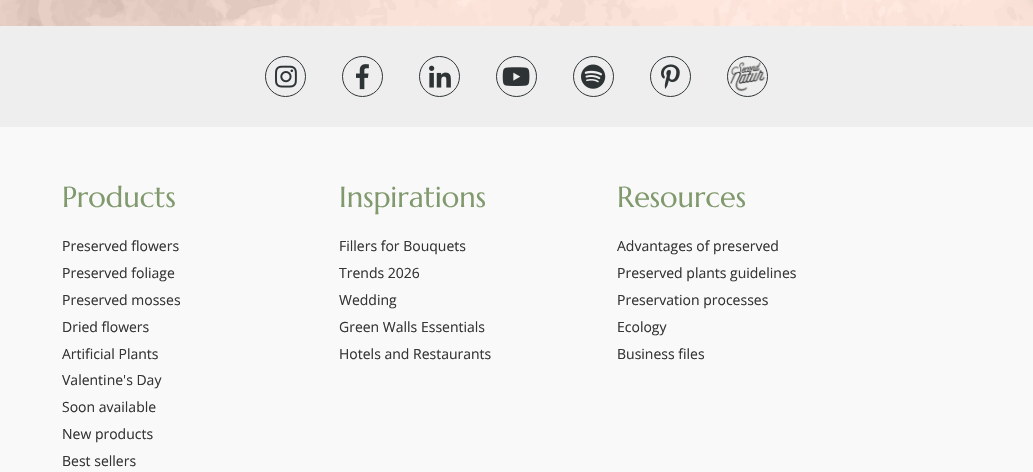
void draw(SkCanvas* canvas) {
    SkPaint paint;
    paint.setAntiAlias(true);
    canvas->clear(0xFFF9F9F9);
    canvas->drawImageRect(SkImages::DeferredFromEncodedData(SkData::MakeFromFileName("img1.png")), SkRect::MakeXYWH(0, 0, 1033, 26), SkSamplingOptions());
    paint.setColor(0x2E000000);
    paint.setMaskFilter(SkMaskFilter::MakeBlur(kNormal_SkBlurStyle, 6));
    canvas->drawRect(SkRect::MakeXYWH(1033, -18, 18, 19), paint);
    paint.setMaskFilter(nullptr);
    paint.setColor(0xFFEEEEEE);
    canvas->drawRect(SkRect::MakeXYWH(0, 26, 1033, 101), paint);
    paint.setStyle(SkPaint::kStroke_Style);
    paint.setStrokeWidth(1);
    paint.setColor(0xFF2E3436);
    canvas->drawCircle(285.5f, 76.5f, 20, paint);
    canvas->drawImageRect(SkImages::DeferredFromEncodedData(SkData::MakeFromFileName("img2.png")), SkRect::MakeXYWH(275, 65, 22, 23), SkSamplingOptions());
    canvas->drawCircle(362.5f, 76.5f, 20, paint);
    canvas->drawImageRect(SkImages::DeferredFromEncodedData(SkData::MakeFromFileName("img3.png")), SkRect::MakeXYWH(356, 64, 13, 26), SkSamplingOptions());
    canvas->drawCircle(439.5f, 76.5f, 20, paint);
    canvas->drawImageRect(SkImages::DeferredFromEncodedData(SkData::MakeFromFileName("img4.png")), SkRect::MakeXYWH(429, 65, 22, 23), SkSamplingOptions());
    canvas->drawCircle(516.5f, 76.5f, 20, paint);
    canvas->drawImageRect(SkImages::DeferredFromEncodedData(SkData::MakeFromFileName("img5.png")), SkRect::MakeXYWH(502, 67, 28, 19), SkSamplingOptions());
    canvas->drawCircle(593.5f, 76.5f, 20, paint);
    canvas->drawImageRect(SkImages::DeferredFromEncodedData(SkData::MakeFromFileName("img6.png")), SkRect::MakeXYWH(581, 64, 25, 25), SkSamplingOptions());
    canvas->drawCircle(670.5f, 76.5f, 20, paint);
    canvas->drawImageRect(SkImages::DeferredFromEncodedData(SkData::MakeFromFileName("img7.png")), SkRect::MakeXYWH(661, 64, 19, 25), SkSamplingOptions());
    canvas->drawCircle(747.5f, 76.5f, 20, paint);
    canvas->drawImageRect(SkImages::DeferredFromEncodedData(SkData::MakeFromFileName("img8.png")), SkRect::MakeXYWH(730, 62, 36, 30), SkSamplingOptions());
    SkFont font1(fontMgr->matchFamilyStyle("Marcellus", SkFontStyle::Normal()), 29);
    font1.setSubpixel(true);
    paint.setStyle(SkPaint::kFill_Style);
    paint.setColor(0xFF80996D);
    canvas->drawString("Products", 62, 207, font1, paint);
    SkFont font2(fontMgr->matchFamilyStyle("Open Sans", SkFontStyle::Normal()), 14);
    font2.setSubpixel(true);
    paint.setColor(0xFF353535);
    canvas->drawString("Preserved flowers", 62, 251, font2, paint);
    canvas->drawString("Preserved foliage", 62, 278, font2, paint);
    canvas->drawString("Preserved mosses", 62, 305, font2, paint);
    canvas->drawString("Dried flowers", 62, 332, font2, paint);
    canvas->drawString("Artificial Plants", 62, 359, font2, paint);
    canvas->drawString("Valentine's Day", 62, 385, font2, paint);
    canvas->drawString("Soon available", 62, 412, font2, paint);
    canvas->drawString("New products", 62, 439, font2, paint);
    canvas->drawString("Best sellers", 62, 466, font2, paint);
    paint.setColor(0xFF80996D);
    canvas->drawString("Inspirations", 339, 207, font1, paint);
    paint.setColor(0xFF353535);
    canvas->drawString("Fillers for Bouquets", 339, 251, font2, paint);
    canvas->drawString("Trends 2026", 339, 278, font2, paint);
    canvas->drawString("Wedding", 339, 305, font2, paint);
    canvas->drawString("Green Walls Essentials", 339, 332, font2, paint);
    canvas->drawString("Hotels and Restaurants", 339, 359, font2, paint);
    paint.setColor(0xFF80996D);
    canvas->drawString("Resources", 617, 207, font1, paint);
    paint.setColor(0xFF353535);
    canvas->drawString("Advantages of preserved", 617, 251, font2, paint);
    canvas->drawString("Preserved plants guidelines", 617, 278, font2, paint);
    canvas->drawString("Preservation processes", 617, 305, font2, paint);
    canvas->drawString("Ecology", 617, 332, font2, paint);
    canvas->drawString("Business files", 617, 359, font2, paint);
}
